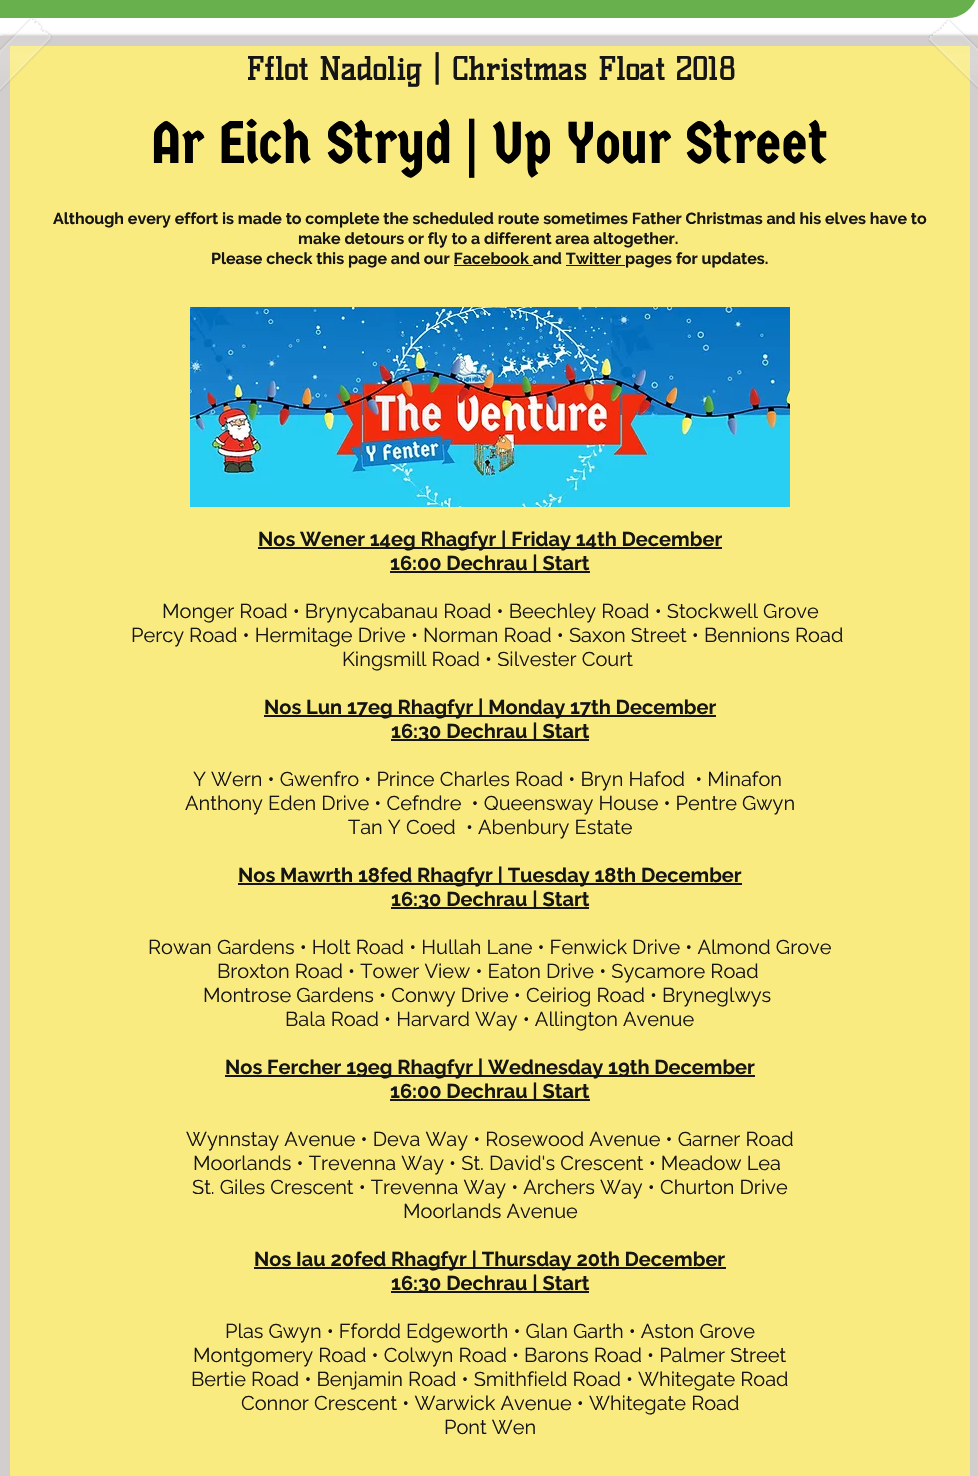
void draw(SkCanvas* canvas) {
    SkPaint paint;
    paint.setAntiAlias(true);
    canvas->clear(0xFFFFFFFF);
    paint.setColor(0xFF68B04D);
    canvas->drawPath(SkPathBuilder().moveTo(28, -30).lineTo(978, -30).lineTo(978, -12).cubicTo(978, 4.5f, 964.5f, 18, 948, 18).lineTo(-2, 18).lineTo(-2, 0).cubicTo(-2, -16.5f, 11.5f, -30, 28, -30).close().detach(), paint);
    paint.setColor(0x99000000);
    paint.setMaskFilter(SkMaskFilter::MakeBlur(kNormal_SkBlurStyle, 2));
    canvas->drawRect(SkRect::MakeXYWH(0, 37, 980, 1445), paint);
    paint.setMaskFilter(nullptr);
    paint.setColor(0xFFF9EB80);
    canvas->drawRect(SkRect::MakeXYWH(5, 41, 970, 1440), paint);
    paint.setStyle(SkPaint::kStroke_Style);
    paint.setStrokeWidth(10);
    paint.setColor(0xFFD2CECE);
    canvas->drawRect(SkRect::MakeXYWH(5, 41, 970, 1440), paint);
    canvas->drawImageRect(SkImages::DeferredFromEncodedData(SkData::MakeFromFileName("img1.png")), SkRect::MakeXYWH(0, 18, 52, 74), SkSamplingOptions());
    canvas->drawImageRect(SkImages::DeferredFromEncodedData(SkData::MakeFromFileName("img2.png")), SkRect::MakeXYWH(928, 19, 50, 70), SkSamplingOptions());
    SkFont font1(fontMgr->matchFamilyStyle("Kelly Slab", SkFontStyle::Bold()), 31);
    font1.setSubpixel(true);
    paint.setStyle(SkPaint::kFill_Style);
    paint.setColor(0xFF161515);
    canvas->drawString("Fflot Nadolig | Christmas Float 2018", 246, 80, font1, paint);
    SkFont font2(fontMgr->matchFamilyStyle("Germania One", SkFontStyle::Normal()), 59);
    font2.setSubpixel(true);
    paint.setColor(0xFF000000);
    canvas->drawString("Ar Eich Stryd | Up Your Street", 151, 163, font2, paint);
    SkFont font3(fontMgr->matchFamilyStyle("Raleway", SkFontStyle::Bold()), 16);
    font3.setSubpixel(true);
    paint.setColor(0xFF161515);
    canvas->drawString("Although every effort is made to complete the scheduled route sometimes Father Christmas and his elves have to", 53, 224, font3, paint);
    canvas->drawString("make detours or fly to a different area altogether.", 298, 244, font3, paint);
    canvas->drawString("Please check this page and our Facebook and Twitter pages for updates.", 211, 264, font3, paint);
    canvas->drawRect(SkRect::MakeXYWH(454, 265, 79, 1), paint);
    canvas->drawRect(SkRect::MakeXYWH(566, 265, 59, 1), paint);
    canvas->drawImageRect(SkImages::DeferredFromEncodedData(SkData::MakeFromFileName("img3.png")), SkRect::MakeXYWH(190, 307, 600, 200), SkSamplingOptions());
    canvas->drawRect(SkRect::MakeXYWH(258, 547, 464, 2), paint);
    SkFont font4(fontMgr->matchFamilyStyle("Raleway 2", SkFontStyle::Bold()), 20);
    font4.setSubpixel(true);
    canvas->drawString("Nos Wener 14eg Rhagfyr | Friday 14th December", 258, 546, font4, paint);
    canvas->drawRect(SkRect::MakeXYWH(390, 571, 200, 2), paint);
    canvas->drawString("16:00 Dechrau | Start", 390, 570, font4, paint);
    SkFont font5(fontMgr->matchFamilyStyle("Raleway", SkFontStyle::Normal()), 20);
    font5.setSubpixel(true);
    canvas->drawString("Monger Road • Brynycabanau Road • Beechley Road • Stockwell Grove", 162, 618, font5, paint);
    canvas->drawString("Percy Road • Hermitage Drive • Norman Road • Saxon Street • Bennions Road", 131, 642, font5, paint);
    canvas->drawString("Kingsmill Road • Silvester Court", 342, 666, font5, paint);
    canvas->drawRect(SkRect::MakeXYWH(264, 715, 452, 2), paint);
    canvas->drawString("Nos Lun 17eg Rhagfyr | Monday 17th December", 264, 714, font4, paint);
    canvas->drawRect(SkRect::MakeXYWH(391, 739, 198, 2), paint);
    canvas->drawString("16:30 Dechrau | Start", 391, 738, font4, paint);
    canvas->drawString("Y Wern • Gwenfro • Prince Charles Road • Bryn Hafod  • Minafon", 193, 786, font5, paint);
    canvas->drawString("Anthony Eden Drive • Cefndre  • Queensway House • Pentre Gwyn", 185, 810, font5, paint);
    canvas->drawString("Tan Y Coed  • Abenbury Estate", 348, 834, font5, paint);
    canvas->drawRect(SkRect::MakeXYWH(238, 883, 504, 2), paint);
    canvas->drawString("Nos Mawrth 18fed Rhagfyr | Tuesday 18th December", 238, 882, font4, paint);
    canvas->drawRect(SkRect::MakeXYWH(391, 907, 198, 2), paint);
    canvas->drawString("16:30 Dechrau | Start", 391, 906, font4, paint);
    canvas->drawString("Rowan Gardens • Holt Road • Hullah Lane • Fenwick Drive • Almond Grove", 148, 954, font5, paint);
    canvas->drawString("Broxton Road • Tower View • Eaton Drive • Sycamore Road", 217, 978, font5, paint);
    canvas->drawString("Montrose Gardens • Conwy Drive • Ceiriog Road • Bryneglwys", 203, 1002, font5, paint);
    canvas->drawString("Bala Road • Harvard Way • Allington Avenue", 285, 1026, font5, paint);
    canvas->drawRect(SkRect::MakeXYWH(225, 1075, 530, 2), paint);
    canvas->drawString("Nos Fercher 19eg Rhagfyr | Wednesday 19th December", 225, 1074, font4, paint);
    canvas->drawRect(SkRect::MakeXYWH(390, 1099, 200, 2), paint);
    canvas->drawString("16:00 Dechrau | Start", 390, 1098, font4, paint);
    canvas->drawString("Wynnstay Avenue • Deva Way • Rosewood Avenue • Garner Road", 186, 1146, font5, paint);
    canvas->drawString("Moorlands • Trevenna Way • St. David's Crescent • Meadow Lea", 193, 1170, font5, paint);
    canvas->drawString("St. Giles Crescent • Trevenna Way • Archers Way • Churton Drive", 192, 1194, font5, paint);
    canvas->drawString("Moorlands Avenue", 403, 1218, font5, paint);
    canvas->drawRect(SkRect::MakeXYWH(254, 1267, 472, 2), paint);
    canvas->drawString("Nos Iau 20fed Rhagfyr | Thursday 20th December", 254, 1266, font4, paint);
    canvas->drawRect(SkRect::MakeXYWH(391, 1291, 198, 2), paint);
    canvas->drawString("16:30 Dechrau | Start", 391, 1290, font4, paint);
    canvas->drawString("Plas Gwyn • Ffordd Edgeworth • Glan Garth • Aston Grove", 225, 1338, font5, paint);
    canvas->drawString("Montgomery Road • Colwyn Road • Barons Road • Palmer Street", 193, 1362, font5, paint);
    canvas->drawString("Bertie Road • Benjamin Road • Smithfield Road • Whitegate Road", 191, 1386, font5, paint);
    canvas->drawString("Connor Crescent • Warwick Avenue • Whitegate Road", 241, 1410, font5, paint);
    canvas->drawString("Pont Wen", 444, 1434, font5, paint);
}
